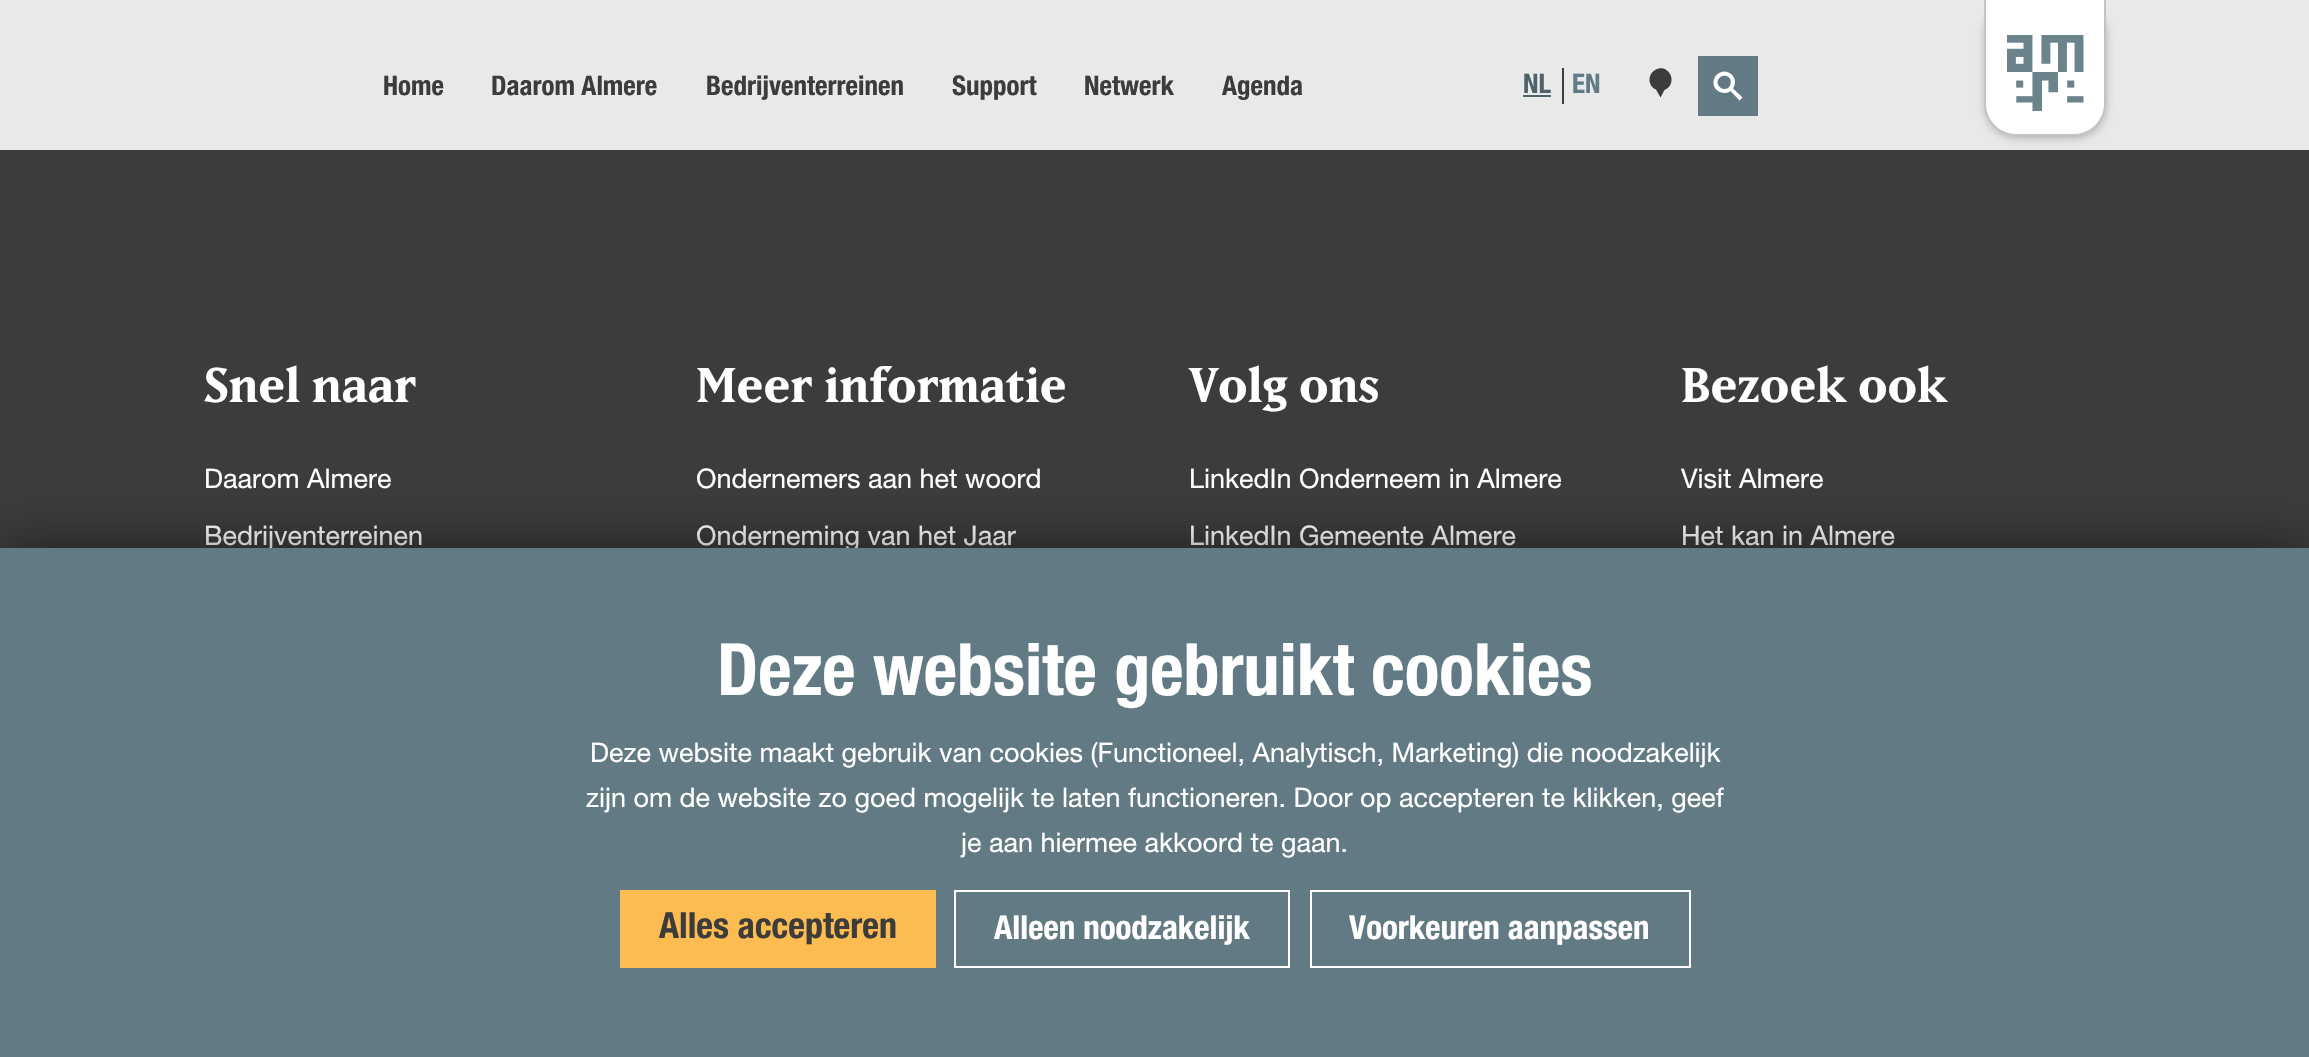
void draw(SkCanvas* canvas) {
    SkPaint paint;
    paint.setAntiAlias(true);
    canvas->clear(0xFFFFFFFF);
    paint.setColor(0xFF3C3C3B);
    canvas->drawPath(SkPathBuilder().moveTo(1949, 8).lineTo(1556, 44).lineTo(1165, 11).lineTo(772, 85).lineTo(380, 42).lineTo(0, 100).lineTo(-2, 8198).lineTo(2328, 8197).lineTo(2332, -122).close().detach(), paint);
    paint.setColor(0xFFE9E9E9);
    canvas->drawRect(SkRect::MakeXYWH(0, 0, 2309, 150), paint);
    SkFont font1(fontMgr->matchFamilyStyle("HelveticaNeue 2", SkFontStyle::Normal()), 27);
    font1.setSubpixel(true);
    paint.setColor(0xFF3C3C3B);
    canvas->drawString("Home", 383, 95, font1, paint);
    canvas->drawString("Daarom Almere", 491, 95, font1, paint);
    canvas->drawString("Bedrijventerreinen", 706, 95, font1, paint);
    canvas->drawString("Support", 952, 95, font1, paint);
    canvas->drawString("Netwerk", 1084, 95, font1, paint);
    canvas->drawString("Agenda", 1222, 95, font1, paint);
    paint.setColor(0xFF4E6269);
    canvas->drawString("NL", 1523, 93, font1, paint);
    canvas->drawRect(SkRect::MakeXYWH(1523, 95, 28, 2), paint);
    paint.setColor(0xFF3C3C3B);
    canvas->drawRect(SkRect::MakeXYWH(1562, 68, 2, 36), paint);
    paint.setColor(0xFF617A83);
    canvas->drawString("EN", 1572, 93, font1, paint);
    canvas->drawImageRect(SkImages::DeferredFromEncodedData(SkData::MakeFromFileName("img1.png")), SkRect::MakeXYWH(1649, 68, 23, 30), SkSamplingOptions());
    canvas->drawRect(SkRect::MakeXYWH(1698, 56, 60, 60), paint);
    canvas->drawImageRect(SkImages::DeferredFromEncodedData(SkData::MakeFromFileName("img2.png")), SkRect::MakeXYWH(1713, 71, 30, 30), SkSamplingOptions());
    paint.setColor(0x40000000);
    paint.setMaskFilter(SkMaskFilter::MakeBlur(kNormal_SkBlurStyle, 4.5f));
    canvas->drawRoundRect(SkRect::MakeXYWH(1985, 3, 121, 135), 32, 32, paint);
    paint.setMaskFilter(nullptr);
    paint.setColor(0xFFFFFFFF);
    canvas->drawPath(SkPathBuilder().moveTo(1985, 0).lineTo(2106, 0).lineTo(2106, 103).cubicTo(2106, 120.5f, 2091.5f, 135, 2074, 135).lineTo(2017, 135).cubicTo(1999.5f, 135, 1985, 120.5f, 1985, 103).close().detach(), paint);
    paint.setColor(0xFFC3C2BF);
    canvas->drawPath(SkPathBuilder(SkPathFillType::kEvenOdd).moveTo(1984, 0).lineTo(2106, 0).lineTo(2106, 104).cubicTo(2106, 121, 2092, 135, 2074, 135).lineTo(2016, 135).cubicTo(1999, 135, 1984, 121, 1984, 104).close().moveTo(1986, 0).lineTo(2104, 0).lineTo(2104, 104).cubicTo(2104, 120, 2091, 134, 2074, 134).lineTo(2016, 134).cubicTo(1999, 134, 1986, 120, 1986, 104).close().detach(), paint);
    canvas->drawImageRect(SkImages::DeferredFromEncodedData(SkData::MakeFromFileName("img3.png")), SkRect::MakeXYWH(2007, 35, 77, 76), SkSamplingOptions());
    SkFont font2(fontMgr->matchFamilyStyle("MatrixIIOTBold", SkFontStyle::Bold()), 48);
    font2.setSubpixel(true);
    paint.setColor(0xFFFFFFFF);
    canvas->drawString("Snel naar", 204, 402, font2, paint);
    SkFont font3(fontMgr->matchFamilyStyle("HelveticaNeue", SkFontStyle::Normal()), 27);
    font3.setSubpixel(true);
    canvas->drawString("Daarom Almere", 204, 488, font3, paint);
    canvas->drawString("Bedrijventerreinen", 204, 545, font3, paint);
    canvas->drawString("Meer informatie", 696, 402, font2, paint);
    canvas->drawString("Ondernemers aan het woord", 696, 488, font3, paint);
    canvas->drawString("Onderneming van het Jaar", 696, 545, font3, paint);
    canvas->drawString("Volg ons", 1189, 402, font2, paint);
    canvas->drawString("LinkedIn Onderneem in Almere", 1189, 488, font3, paint);
    canvas->drawString("LinkedIn Gemeente Almere", 1189, 545, font3, paint);
    canvas->drawString("Bezoek ook", 1681, 402, font2, paint);
    canvas->drawString("Visit Almere", 1681, 488, font3, paint);
    canvas->drawString("Het kan in Almere", 1681, 545, font3, paint);
    paint.setColor(0x80000000);
    paint.setMaskFilter(SkMaskFilter::MakeBlur(kNormal_SkBlurStyle, 25.5f));
    canvas->drawRect(SkRect::MakeXYWH(0, 548, 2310, 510), paint);
    paint.setMaskFilter(nullptr);
    paint.setColor(0xFF617A83);
    canvas->drawRect(SkRect::MakeXYWH(0, 548, 2309, 509), paint);
    SkFont font4(fontMgr->matchFamilyStyle("HelveticaNeue 2", SkFontStyle::Normal()), 72);
    font4.setSubpixel(true);
    paint.setColor(0xFFFFFFFF);
    canvas->drawString("Deze website gebruikt cookies", 717, 695, font4, paint);
    canvas->drawString("Deze website maakt gebruik van cookies (Functioneel, Analytisch, Marketing) die noodzakelijk", 590, 762, font3, paint);
    canvas->drawString("zijn om de website zo goed mogelijk te laten functioneren. Door op accepteren te klikken, geef", 586, 807, font3, paint);
    canvas->drawString("je aan hiermee akkoord te gaan.", 961, 852, font3, paint);
    paint.setColor(0xFFFCBC51);
    canvas->drawRect(SkRect::MakeXYWH(620, 890, 316, 78), paint);
    SkFont font5(fontMgr->matchFamilyStyle("HelveticaNeue 2", SkFontStyle::Normal()), 36);
    font5.setSubpixel(true);
    paint.setColor(0xFF3C3C3B);
    canvas->drawString("Alles accepteren", 659, 938, font5, paint);
    paint.setStyle(SkPaint::kStroke_Style);
    paint.setStrokeWidth(2);
    paint.setColor(0xFFFFFFFF);
    canvas->drawRect(SkRect::MakeXYWH(955, 891, 334, 76), paint);
    SkFont font6(fontMgr->matchFamilyStyle("HelveticaNeue 2", SkFontStyle::Normal()), 33);
    font6.setSubpixel(true);
    paint.setStyle(SkPaint::kFill_Style);
    canvas->drawString("Alleen noodzakelijk", 994, 939, font6, paint);
    paint.setStyle(SkPaint::kStroke_Style);
    canvas->drawRect(SkRect::MakeXYWH(1311, 891, 379, 76), paint);
    paint.setStyle(SkPaint::kFill_Style);
    canvas->drawString("Voorkeuren aanpassen", 1349, 939, font6, paint);
}
